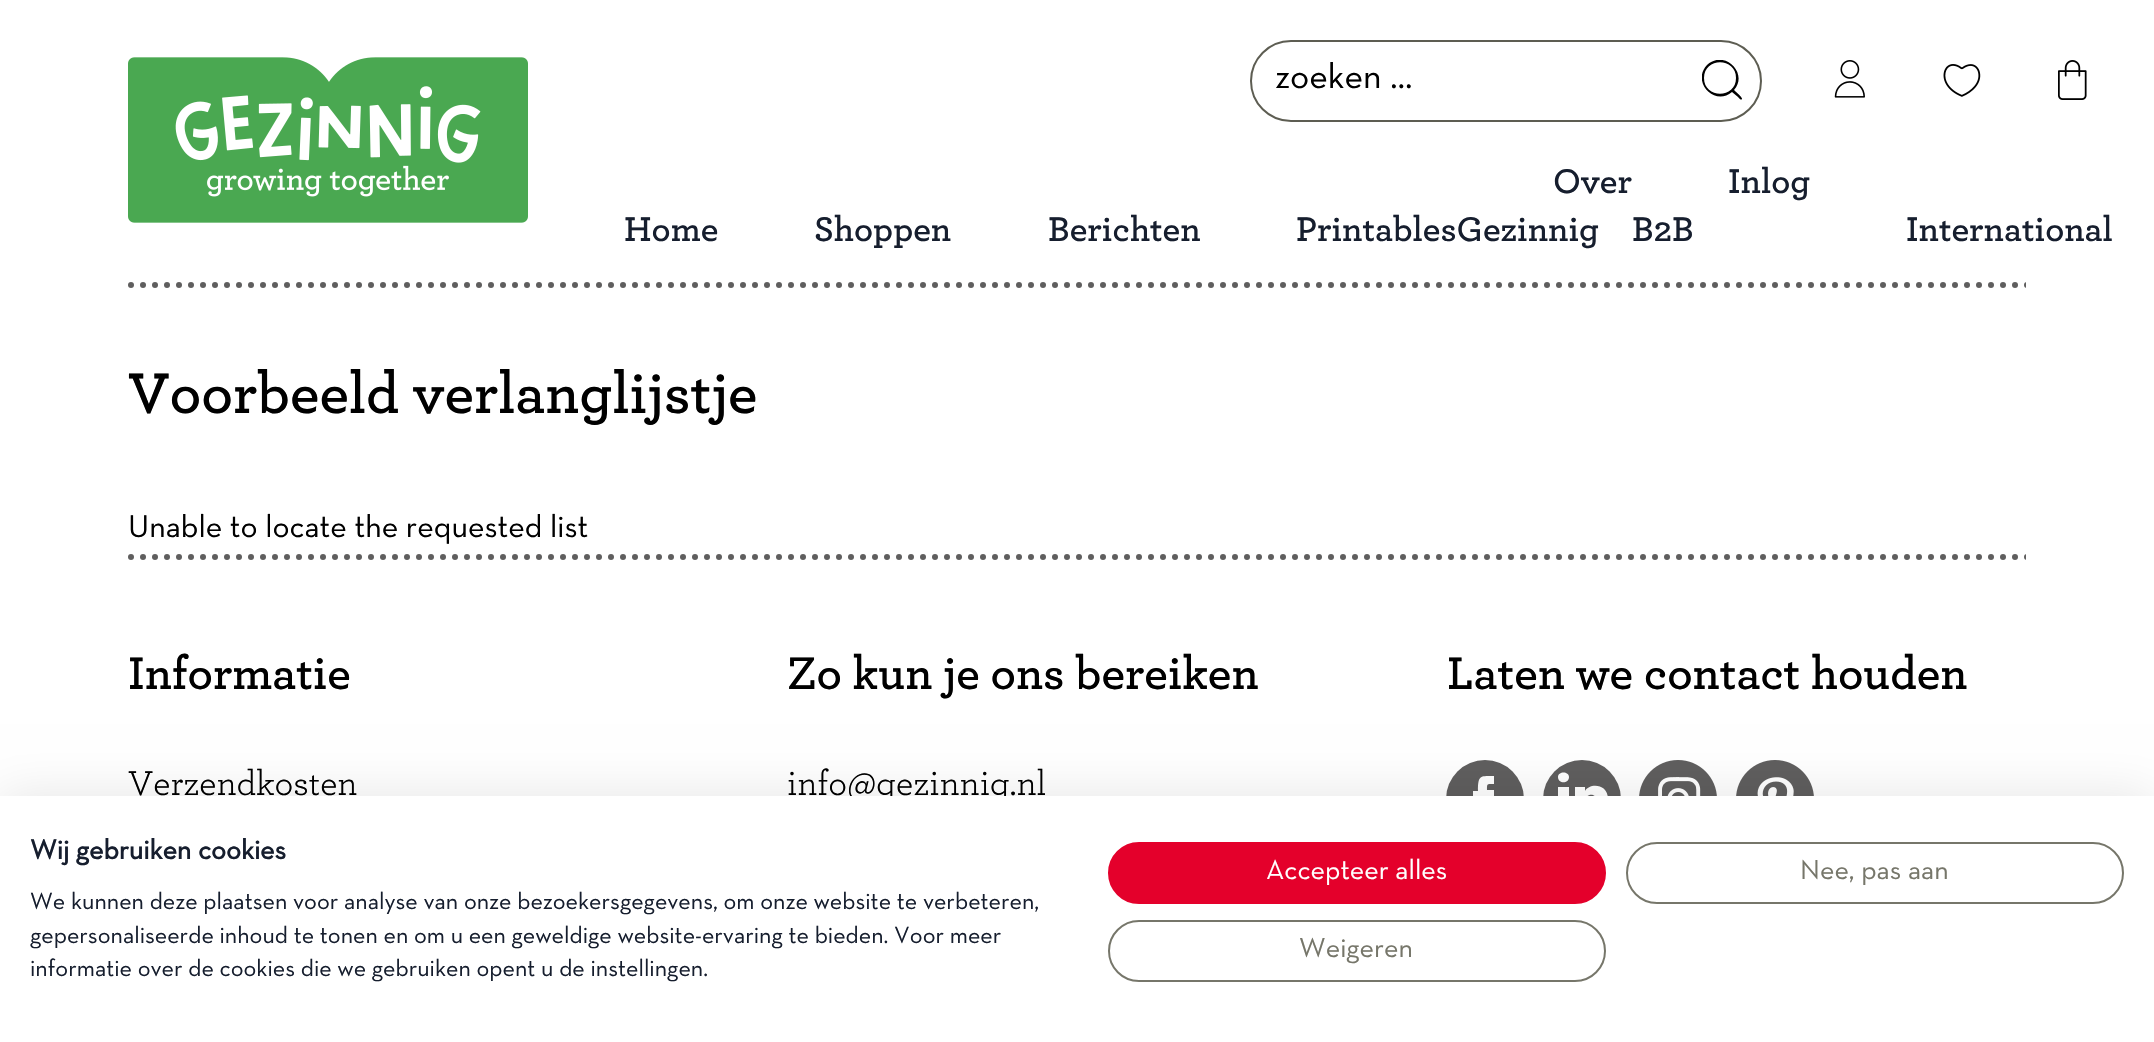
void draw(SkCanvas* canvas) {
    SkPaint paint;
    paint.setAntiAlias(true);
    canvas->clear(0xFFFFFFFF);
    canvas->drawImageRect(SkImages::DeferredFromEncodedData(SkData::MakeFromFileName("img1.png")), SkRect::MakeXYWH(128, 57, 400, 166), SkSamplingOptions());
    paint.setStyle(SkPaint::kStroke_Style);
    paint.setStrokeWidth(2);
    paint.setColor(0xFF5D5D52);
    canvas->drawRoundRect(SkRect::MakeXYWH(1251, 41, 510, 80), 40, 40, paint);
    SkFont font1(fontMgr->matchFamilyStyle("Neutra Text", SkFontStyle::Normal()), 36);
    font1.setSubpixel(true);
    paint.setStyle(SkPaint::kFill_Style);
    paint.setColor(0xFF000000);
    canvas->drawString("zoeken …", 1275, 88, font1, paint);
    canvas->save();
    canvas->clipRect(SkRect::MakeXYWH(1702, 60, 40, 40));
    canvas->drawPath(SkPathBuilder().moveTo(1734, 90).cubicTo(1749, 73, 1724, 49, 1707, 65).cubicTo(1691, 82, 1715, 107, 1732, 92).lineTo(1738, 97).cubicTo(1738, 97, 1741, 101, 1742, 99).cubicTo(1743, 98, 1735, 91, 1734, 90).close().moveTo(1704, 78).cubicTo(1704, 57, 1736, 57, 1736, 78).cubicTo(1736, 99, 1704, 99, 1704, 78).close().detach(), paint);
    canvas->restore();
    canvas->drawImageRect(SkImages::DeferredFromEncodedData(SkData::MakeFromFileName("img2.png")), SkRect::MakeXYWH(1834, 60, 31, 38), SkSamplingOptions());
    canvas->drawImageRect(SkImages::DeferredFromEncodedData(SkData::MakeFromFileName("img3.png")), SkRect::MakeXYWH(1943, 64, 38, 33), SkSamplingOptions());
    canvas->drawImageRect(SkImages::DeferredFromEncodedData(SkData::MakeFromFileName("img4.png")), SkRect::MakeXYWH(2058, 60, 29, 40), SkSamplingOptions());
    SkFont font2(fontMgr->matchFamilyStyle("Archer", SkFontStyle(600, SkFontStyle::kNormal_Width, SkFontStyle::kUpright_Slant)), 36);
    font2.setSubpixel(true);
    paint.setColor(0xFF161E2E);
    canvas->drawString("Over", 1553, 193, font2, paint);
    canvas->drawString("Inlog", 1728, 193, font2, paint);
    canvas->drawString("B2B", 1632, 241, font2, paint);
    canvas->drawString("Home", 624, 241, font2, paint);
    canvas->drawString("Shoppen", 814, 241, font2, paint);
    canvas->drawString("Berichten", 1048, 241, font2, paint);
    canvas->drawString("PrintablesGezinnig", 1296, 241, font2, paint);
    canvas->drawString("International", 1906, 241, font2, paint);
    canvas->drawImageRect(SkImages::DeferredFromEncodedData(SkData::MakeFromFileName("img5.png")), SkRect::MakeXYWH(128, 282, 1898, 6), SkSamplingOptions());
    SkFont font3(fontMgr->matchFamilyStyle("Archer", SkFontStyle(600, SkFontStyle::kNormal_Width, SkFontStyle::kUpright_Slant)), 60);
    font3.setSubpixel(true);
    paint.setColor(0xFF000000);
    canvas->drawString("Voorbeeld verlanglijstje", 128, 413, font3, paint);
    SkFont font4(fontMgr->matchFamilyStyle("Neutra Text", SkFontStyle::Normal()), 32);
    font4.setSubpixel(true);
    canvas->drawString("Unable to locate the requested list", 128, 537, font4, paint);
    canvas->drawImageRect(SkImages::DeferredFromEncodedData(SkData::MakeFromFileName("img5.png")), SkRect::MakeXYWH(128, 554, 1898, 6), SkSamplingOptions());
    SkFont font5(fontMgr->matchFamilyStyle("Archer", SkFontStyle(600, SkFontStyle::kNormal_Width, SkFontStyle::kUpright_Slant)), 48);
    font5.setSubpixel(true);
    canvas->drawString("Informatie", 128, 689, font5, paint);
    SkFont font6(fontMgr->matchFamilyStyle("Archer", SkFontStyle::Normal()), 36);
    font6.setSubpixel(true);
    canvas->drawString("Verzendkosten", 128, 795, font6, paint);
    canvas->drawString("Zo kun je ons bereiken", 787, 689, font5, paint);
    canvas->drawString("info@gezinnig.nl", 787, 795, font6, paint);
    canvas->drawString("Laten we contact houden", 1447, 689, font5, paint);
    paint.setColor(0xFF5F5E5E);
    canvas->drawCircle(1485, 799, 39, paint);
    paint.setColor(0xFFFFFFFF);
    canvas->drawPath(SkPathBuilder().moveTo(1478, 821).lineTo(1487, 821).lineTo(1487, 798).lineTo(1494, 798).lineTo(1494, 790).lineTo(1487, 790).cubicTo(1487, 783, 1487, 784, 1494, 784).lineTo(1494, 776).cubicTo(1480, 776, 1478, 775, 1478, 791).lineTo(1473, 791).lineTo(1473, 798).lineTo(1478, 798).close().detach(), paint);
    paint.setColor(0xFF5F5E5E);
    canvas->drawCircle(1582, 799, 39, paint);
    paint.setColor(0xFFFFFFFF);
    canvas->drawPath(SkPathBuilder().moveTo(1569, 777).cubicTo(1569, 784, 1558, 784, 1558, 777).cubicTo(1558, 771, 1569, 771, 1569, 777).close().moveTo(1569, 787).lineTo(1558, 787).lineTo(1558, 819).lineTo(1569, 819).close().moveTo(1585, 787).lineTo(1575, 787).lineTo(1575, 819).lineTo(1585, 819).lineTo(1585, 802).cubicTo(1585, 793, 1597, 792, 1597, 802).lineTo(1597, 819).lineTo(1608, 819).lineTo(1608, 799).cubicTo(1608, 783, 1589, 783, 1585, 791).close().detach(), paint);
    canvas->drawImageRect(SkImages::DeferredFromEncodedData(SkData::MakeFromFileName("img6.png")), SkRect::MakeXYWH(1639, 760, 78, 36), SkSamplingOptions());
    canvas->drawImageRect(SkImages::DeferredFromEncodedData(SkData::MakeFromFileName("img7.png")), SkRect::MakeXYWH(1736, 760, 78, 36), SkSamplingOptions());
    paint.setColor(0x1A000000);
    paint.setMaskFilter(SkMaskFilter::MakeBlur(kNormal_SkBlurStyle, 24));
    canvas->drawRect(SkRect::MakeXYWH(0, 796, 2154, 246), paint);
    paint.setMaskFilter(nullptr);
    paint.setColor(0xFFFFFFFF);
    canvas->drawRect(SkRect::MakeXYWH(0, 796, 2154, 246), paint);
    SkFont font7(fontMgr->matchFamilyStyle("Neutra Text", SkFontStyle::Bold()), 28);
    font7.setSubpixel(true);
    paint.setColor(0xFF161E2E);
    canvas->drawString("Wij gebruiken cookies", 30, 859, font7, paint);
    SkFont font8(fontMgr->matchFamilyStyle("Neutra Text", SkFontStyle::Normal()), 24);
    font8.setSubpixel(true);
    canvas->drawString("We kunnen deze plaatsen voor analyse van onze bezoekersgegevens, om onze website te verbeteren,", 30, 909, font8, paint);
    canvas->drawString("gepersonaliseerde inhoud te tonen en om u een geweldige website-ervaring te bieden. Voor meer", 30, 943, font8, paint);
    canvas->drawString("informatie over de cookies die we gebruiken opent u de instellingen.", 30, 976, font8, paint);
    paint.setColor(0xFFE4002B);
    canvas->drawRoundRect(SkRect::MakeXYWH(1109, 843, 496, 60), 30, 30, paint);
    paint.setStyle(SkPaint::kStroke_Style);
    canvas->drawRoundRect(SkRect::MakeXYWH(1109, 843, 496, 60), 30, 30, paint);
    SkFont font9(fontMgr->matchFamilyStyle("Neutra Text", SkFontStyle::Normal()), 28);
    font9.setSubpixel(true);
    paint.setStyle(SkPaint::kFill_Style);
    paint.setColor(0xFFFFFFFF);
    canvas->drawString("Accepteer alles", 1266, 879, font9, paint);
    paint.setStyle(SkPaint::kStroke_Style);
    paint.setColor(0xFF76766A);
    canvas->drawRoundRect(SkRect::MakeXYWH(1627, 843, 496, 60), 30, 30, paint);
    paint.setStyle(SkPaint::kFill_Style);
    canvas->drawString("Nee, pas aan", 1800, 879, font9, paint);
    paint.setStyle(SkPaint::kStroke_Style);
    canvas->drawRoundRect(SkRect::MakeXYWH(1109, 921, 496, 60), 30, 30, paint);
    paint.setStyle(SkPaint::kFill_Style);
    canvas->drawString("Weigeren", 1299, 957, font9, paint);
}
